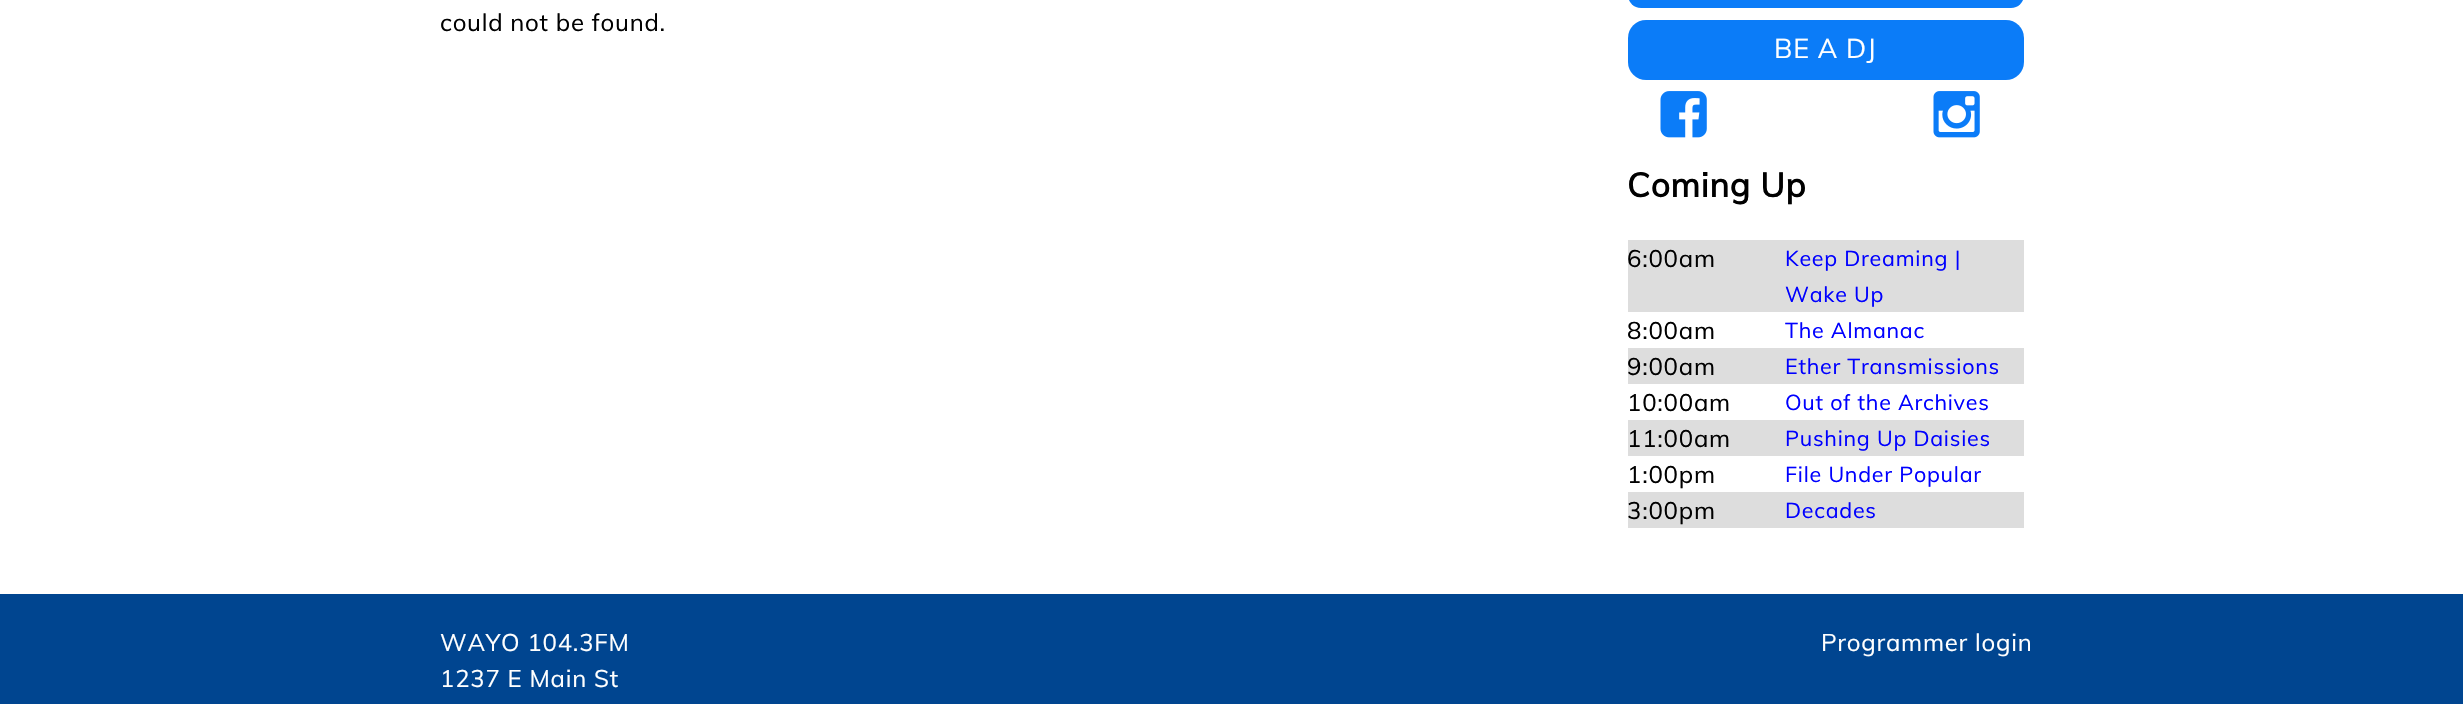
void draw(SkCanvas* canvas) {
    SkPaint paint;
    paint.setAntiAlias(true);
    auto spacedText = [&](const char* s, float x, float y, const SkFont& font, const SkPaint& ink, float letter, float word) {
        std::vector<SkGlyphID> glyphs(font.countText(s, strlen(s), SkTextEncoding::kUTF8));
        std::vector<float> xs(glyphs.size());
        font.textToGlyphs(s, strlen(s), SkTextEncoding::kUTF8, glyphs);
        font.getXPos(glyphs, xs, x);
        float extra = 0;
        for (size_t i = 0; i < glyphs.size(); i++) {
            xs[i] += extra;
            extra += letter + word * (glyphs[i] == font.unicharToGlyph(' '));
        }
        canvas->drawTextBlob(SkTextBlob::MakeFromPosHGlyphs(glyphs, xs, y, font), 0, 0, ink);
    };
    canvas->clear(0xFFFFFFFF);
    SkFont font1(fontMgr->matchFamilyStyle("Muli", SkFontStyle::Normal()), 24);
    font1.setSubpixel(true);
    paint.setColor(0xFF000000);
    spacedText("could not be found.", 440, 31, font1, paint, 0.75f, 0);
    paint.setColor(0xFF0B7CF8);
    canvas->drawRoundRect(SkRect::MakeXYWH(1628, -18, 396, 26), 18, 18, paint);
    canvas->drawRoundRect(SkRect::MakeXYWH(1628, 20, 396, 60), 18, 18, paint);
    SkFont font2(fontMgr->matchFamilyStyle("Muli", SkFontStyle::Normal()), 27);
    font2.setSubpixel(true);
    paint.setColor(0xFFFFFFFF);
    spacedText("BE A DJ", 1774, 58, font2, paint, 0.75f, 0);
    canvas->drawImageRect(SkImages::DeferredFromEncodedData(SkData::MakeFromFileName("img1.png")), SkRect::MakeXYWH(1660, 91, 47, 47), SkSamplingOptions());
    canvas->drawImageRect(SkImages::DeferredFromEncodedData(SkData::MakeFromFileName("img2.png")), SkRect::MakeXYWH(1933, 91, 47, 47), SkSamplingOptions());
    SkFont font3(fontMgr->matchFamilyStyle("Muli", SkFontStyle::Bold()), 33.5f);
    font3.setSubpixel(true);
    paint.setColor(0xFF000000);
    spacedText("Coming Up", 1627, 197, font3, paint, 0.75f, 0);
    paint.setColor(0xFFDDDDDD);
    canvas->drawRect(SkRect::MakeXYWH(1628, 240, 396, 72), paint);
    paint.setColor(0xFF000000);
    spacedText("6:00am", 1627, 267, font1, paint, 0.75f, 0);
    SkFont font4(fontMgr->matchFamilyStyle("Muli", SkFontStyle::Normal()), 21.5f);
    font4.setSubpixel(true);
    paint.setColor(0xFF0000FF);
    spacedText("Keep Dreaming |", 1785, 266, font4, paint, 0.75f, 0);
    spacedText("Wake Up", 1785, 302, font4, paint, 0.75f, 0);
    paint.setColor(0xFF000000);
    spacedText("8:00am", 1627, 339, font1, paint, 0.75f, 0);
    paint.setColor(0xFF0000FF);
    spacedText("The Almanac", 1785, 338, font4, paint, 0.75f, 0);
    paint.setColor(0xFFDDDDDD);
    canvas->drawRect(SkRect::MakeXYWH(1628, 348, 396, 36), paint);
    paint.setColor(0xFF000000);
    spacedText("9:00am", 1627, 375, font1, paint, 0.75f, 0);
    paint.setColor(0xFF0000FF);
    spacedText("Ether Transmissions", 1785, 374, font4, paint, 0.75f, 0);
    paint.setColor(0xFF000000);
    spacedText("10:00am", 1627, 411, font1, paint, 0.75f, 0);
    paint.setColor(0xFF0000FF);
    spacedText("Out of the Archives", 1785, 410, font4, paint, 0.75f, 0);
    paint.setColor(0xFFDDDDDD);
    canvas->drawRect(SkRect::MakeXYWH(1628, 420, 396, 36), paint);
    paint.setColor(0xFF000000);
    spacedText("11:00am", 1627, 447, font1, paint, 0.75f, 0);
    paint.setColor(0xFF0000FF);
    spacedText("Pushing Up Daisies", 1785, 446, font4, paint, 0.75f, 0);
    paint.setColor(0xFF000000);
    spacedText("1:00pm", 1627, 483, font1, paint, 0.75f, 0);
    paint.setColor(0xFF0000FF);
    spacedText("File Under Popular", 1785, 482, font4, paint, 0.75f, 0);
    paint.setColor(0xFFDDDDDD);
    canvas->drawRect(SkRect::MakeXYWH(1628, 492, 396, 36), paint);
    paint.setColor(0xFF000000);
    spacedText("3:00pm", 1627, 519, font1, paint, 0.75f, 0);
    paint.setColor(0xFF0000FF);
    spacedText("Decades", 1785, 518, font4, paint, 0.75f, 0);
    paint.setColor(0xFF004590);
    canvas->drawRect(SkRect::MakeXYWH(0, 594, 2463, 110), paint);
    paint.setColor(0xFFFFFFFF);
    spacedText("WAYO 104.3FM", 440, 651, font1, paint, 0.75f, 0);
    spacedText("1237 E Main St", 440, 687, font1, paint, 0.75f, 0);
    spacedText("Programmer login", 1821, 651, font1, paint, 0.75f, 0);
}
